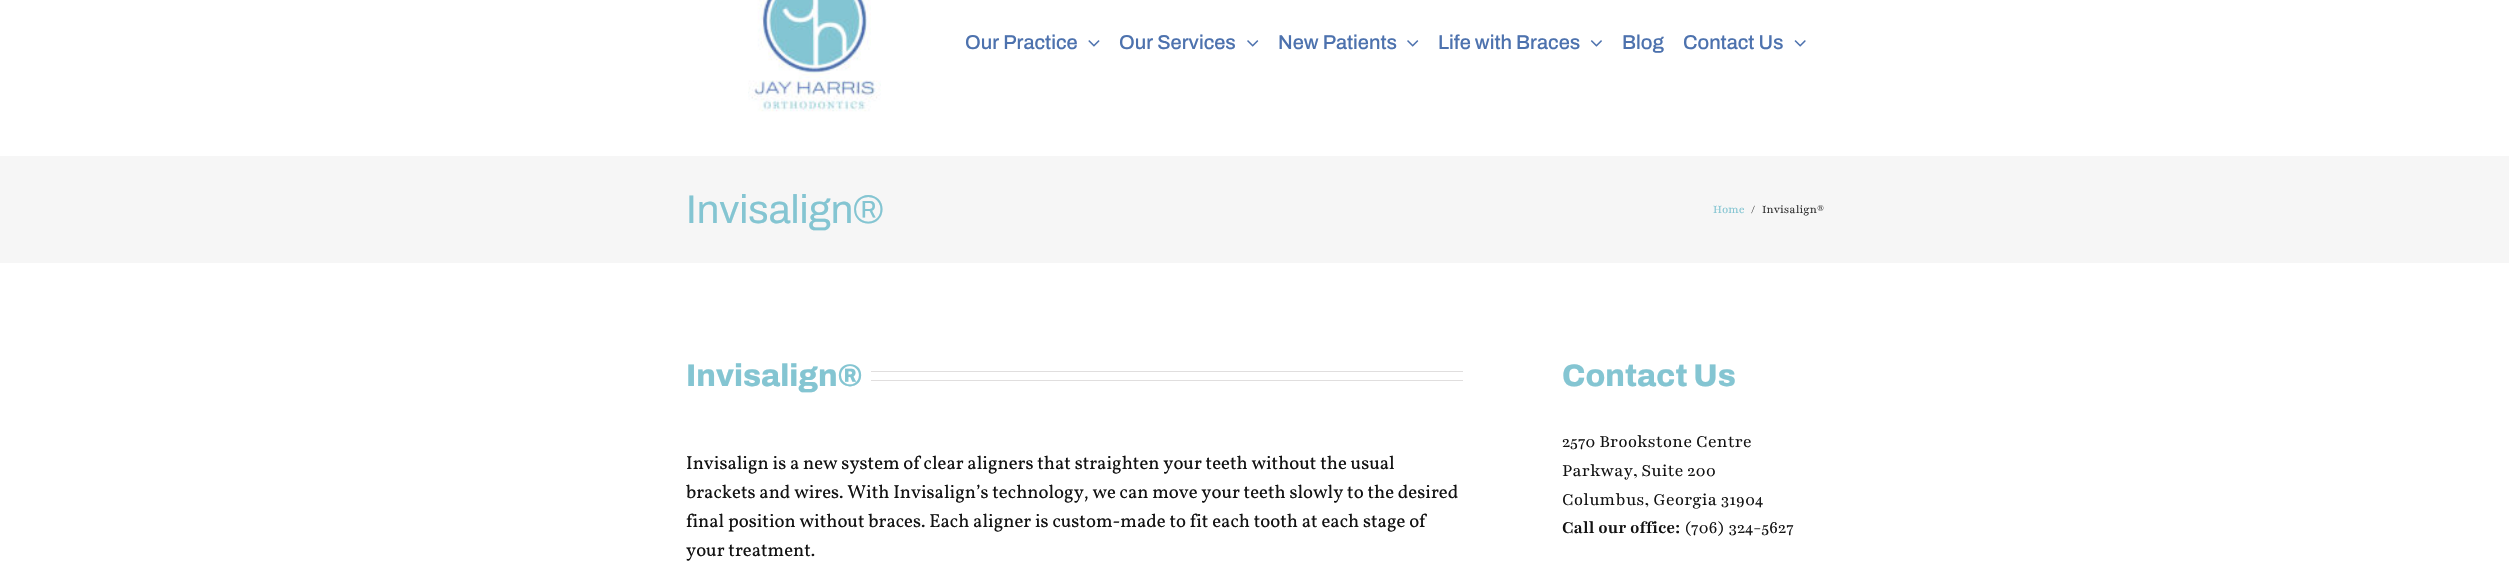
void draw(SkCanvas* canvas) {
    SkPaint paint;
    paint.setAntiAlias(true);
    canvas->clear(0xFFFFFFFF);
    canvas->drawImageRect(SkImages::DeferredFromEncodedData(SkData::MakeFromFileName("img1.png")), SkRect::MakeXYWH(748, 0, 133, 112), SkSamplingOptions());
    SkFont font1(fontMgr->matchFamilyStyle("Archivo", SkFontStyle(500, SkFontStyle::kNormal_Width, SkFontStyle::kUpright_Slant)), 20);
    font1.setSubpixel(true);
    paint.setColor(0xFF4D72AE);
    canvas->drawString("Our Practice", 965, 49, font1, paint);
    canvas->drawImageRect(SkImages::DeferredFromEncodedData(SkData::MakeFromFileName("img2.png")), SkRect::MakeXYWH(1088, 40, 12, 7), SkSamplingOptions());
    canvas->drawString("Our Services", 1119, 49, font1, paint);
    canvas->drawImageRect(SkImages::DeferredFromEncodedData(SkData::MakeFromFileName("img3.png")), SkRect::MakeXYWH(1247, 40, 12, 7), SkSamplingOptions());
    canvas->drawString("New Patients", 1278, 49, font1, paint);
    canvas->drawImageRect(SkImages::DeferredFromEncodedData(SkData::MakeFromFileName("img3.png")), SkRect::MakeXYWH(1407, 40, 12, 7), SkSamplingOptions());
    canvas->drawString("Life with Braces", 1438, 49, font1, paint);
    canvas->drawImageRect(SkImages::DeferredFromEncodedData(SkData::MakeFromFileName("img4.png")), SkRect::MakeXYWH(1590, 40, 12, 7), SkSamplingOptions());
    canvas->drawString("Blog", 1622, 49, font1, paint);
    canvas->drawString("Contact Us", 1683, 49, font1, paint);
    canvas->drawImageRect(SkImages::DeferredFromEncodedData(SkData::MakeFromFileName("img5.png")), SkRect::MakeXYWH(1794, 40, 12, 7), SkSamplingOptions());
    paint.setColor(0xFFF6F6F6);
    canvas->drawRect(SkRect::MakeXYWH(0, 156, 2509, 107), paint);
    SkFont font2(fontMgr->matchFamilyStyle("Archivo", SkFontStyle::Normal()), 40);
    font2.setSubpixel(true);
    paint.setColor(0xFF84C5D2);
    canvas->drawString("Invisalign®", 686, 223, font2, paint);
    SkFont font3(fontMgr->matchFamilyStyle("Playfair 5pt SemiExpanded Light", SkFontStyle::Normal()), 12.5f);
    font3.setSubpixel(true);
    canvas->drawString("Home", 1713, 213, font3, paint);
    paint.setColor(0xFF333333);
    canvas->drawString("/", 1751, 213, font3, paint);
    canvas->drawString("Invisalign®", 1762, 213, font3, paint);
    SkFont font4(fontMgr->matchFamilyStyle("Archivo", SkFontStyle(800, SkFontStyle::kNormal_Width, SkFontStyle::kUpright_Slant)), 31.25f);
    font4.setSubpixel(true);
    paint.setColor(0xFF84C5D2);
    canvas->drawString("Invisalign®", 686, 386, font4, paint);
    paint.setColor(0xFFE0DEDE);
    canvas->drawRect(SkRect::MakeXYWH(871, 371, 592, 1), paint);
    canvas->drawRect(SkRect::MakeXYWH(871, 380, 592, 1), paint);
    SkFont font5(fontMgr->matchFamilyStyle("Vollkorn", SkFontStyle::Normal()), 18.75f);
    font5.setSubpixel(true);
    paint.setColor(0xFF131313);
    canvas->drawString("Invisalign is a new system of clear aligners that straighten your teeth without the usual", 686, 469, font5, paint);
    canvas->drawString("brackets and wires. With Invisalign’s technology, we can move your teeth slowly to the desired", 686, 498, font5, paint);
    canvas->drawString("final position without braces. Each aligner is custom-made to fit each tooth at each stage of", 686, 527, font5, paint);
    canvas->drawString("your treatment.", 686, 556, font5, paint);
    paint.setColor(0xFF84C5D2);
    canvas->drawString("Contact Us", 1562, 386, font4, paint);
    SkFont font6(fontMgr->matchFamilyStyle("Playfair 5pt SemiExpanded Light", SkFontStyle::Normal()), 18.75f);
    font6.setSubpixel(true);
    paint.setColor(0xFF131313);
    canvas->drawString("2570 Brookstone Centre", 1562, 447, font6, paint);
    canvas->drawString("Parkway, Suite 200", 1562, 476, font6, paint);
    canvas->drawString("Columbus, Georgia 31904", 1562, 505, font6, paint);
    SkFont font7(fontMgr->matchFamilyStyle("Playfair 5pt SemiExpanded Light", SkFontStyle::Bold()), 18.75f);
    font7.setSubpixel(true);
    canvas->drawString("Call our office:", 1562, 533, font7, paint);
    canvas->drawString("(706) 324-5627", 1684, 533, font6, paint);
}
